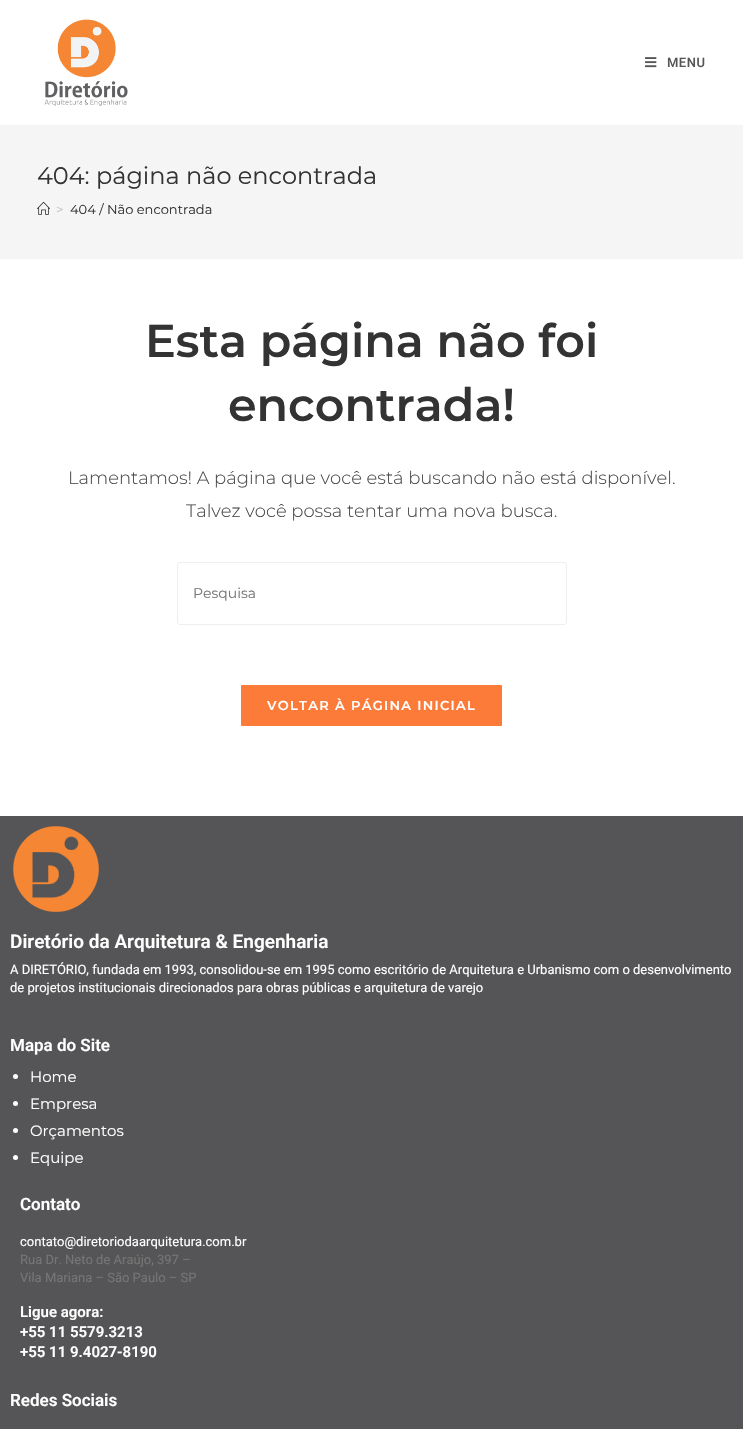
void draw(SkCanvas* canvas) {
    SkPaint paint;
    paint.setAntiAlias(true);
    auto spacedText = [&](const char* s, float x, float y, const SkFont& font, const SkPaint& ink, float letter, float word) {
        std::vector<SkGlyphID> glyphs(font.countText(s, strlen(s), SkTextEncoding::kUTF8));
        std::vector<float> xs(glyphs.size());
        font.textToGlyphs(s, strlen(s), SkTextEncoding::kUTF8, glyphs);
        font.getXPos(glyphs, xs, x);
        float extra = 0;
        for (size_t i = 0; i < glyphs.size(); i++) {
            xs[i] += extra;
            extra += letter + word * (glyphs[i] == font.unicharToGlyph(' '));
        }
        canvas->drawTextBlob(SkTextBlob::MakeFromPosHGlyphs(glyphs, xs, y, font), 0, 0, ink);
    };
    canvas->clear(0xFFFFFFFF);
    canvas->drawImageRect(SkImages::DeferredFromEncodedData(SkData::MakeFromFileName("img1.png")), SkRect::MakeXYWH(44, 19, 84, 87), SkSamplingOptions());
    canvas->drawImageRect(SkImages::DeferredFromEncodedData(SkData::MakeFromFileName("img2.png")), SkRect::MakeXYWH(645, 57, 12, 11), SkSamplingOptions());
    SkFont font1(fontMgr->matchFamilyStyle("Roboto", SkFontStyle(500, SkFontStyle::kNormal_Width, SkFontStyle::kUpright_Slant)), 13);
    font1.setSubpixel(true);
    paint.setColor(0xFF555555);
    spacedText("MENU", 667, 67, font1, paint, 0.5f, 0);
    paint.setColor(0xFFF5F5F5);
    canvas->drawRect(SkRect::MakeXYWH(0, 125, 743, 134), paint);
    SkFont font2(fontMgr->matchFamilyStyle("Montserrat", SkFontStyle::Normal()), 24);
    font2.setSubpixel(true);
    paint.setColor(0xFF333333);
    canvas->drawString("404: página não encontrada", 37, 184, font2, paint);
    canvas->drawImageRect(SkImages::DeferredFromEncodedData(SkData::MakeFromFileName("img3.png")), SkRect::MakeXYWH(37, 201, 13, 14), SkSamplingOptions());
    SkFont font3(fontMgr->matchFamilyStyle("Montserrat", SkFontStyle::Normal()), 13);
    font3.setSubpixel(true);
    paint.setColor(0xFFC6C6C6);
    canvas->drawString(">", 56, 214, font3, paint);
    paint.setColor(0xFF333333);
    canvas->drawString("404 / Não encontrada", 70, 214, font3, paint);
    SkFont font4(fontMgr->matchFamilyStyle("Montserrat", SkFontStyle(600, SkFontStyle::kNormal_Width, SkFontStyle::kUpright_Slant)), 46);
    font4.setSubpixel(true);
    canvas->drawString("Esta página não foi", 145, 357, font4, paint);
    canvas->drawString("encontrada!", 228, 421, font4, paint);
    SkFont font5(fontMgr->matchFamilyStyle("Montserrat", SkFontStyle(300, SkFontStyle::kNormal_Width, SkFontStyle::kUpright_Slant)), 18);
    font5.setSubpixel(true);
    paint.setColor(0xFF4A4A4A);
    canvas->drawString("Lamentamos! A página que você está buscando não está disponível.", 68, 484, font5, paint);
    canvas->drawString("Talvez você possa tentar uma nova busca.", 186, 517, font5, paint);
    paint.setStyle(SkPaint::kStroke_Style);
    paint.setStrokeWidth(1);
    paint.setColor(0xFFEEEEEE);
    canvas->drawRoundRect(SkRect::MakeXYWH(177.5f, 562.5f, 389, 62), 2.5f, 2.5f, paint);
    SkFont font6(fontMgr->matchFamilyStyle("Montserrat", SkFontStyle::Normal()), 14);
    font6.setSubpixel(true);
    paint.setStyle(SkPaint::kFill_Style);
    paint.setColor(0xFF757575);
    canvas->drawString("Pesquisa", 193, 598, font6, paint);
    paint.setColor(0xFFFD7B39);
    canvas->drawRoundRect(SkRect::MakeXYWH(241, 685, 261, 41), 1, 1, paint);
    SkFont font7(fontMgr->matchFamilyStyle("Montserrat", SkFontStyle(600, SkFontStyle::kNormal_Width, SkFontStyle::kUpright_Slant)), 13);
    font7.setSubpixel(true);
    paint.setColor(0xFFFFFFFF);
    spacedText("VOLTAR À PÁGINA INICIAL", 267, 710, font7, paint, 1.3f, 0);
    paint.setColor(0xFF555557);
    canvas->drawRect(SkRect::MakeXYWH(0, 816, 743, 613), paint);
    canvas->drawImageRect(SkImages::DeferredFromEncodedData(SkData::MakeFromFileName("img4.png")), SkRect::MakeXYWH(13, 826, 86, 86), SkSamplingOptions());
    SkFont font8(fontMgr->matchFamilyStyle("Roboto", SkFontStyle(600, SkFontStyle::kNormal_Width, SkFontStyle::kUpright_Slant)), 19);
    font8.setSubpixel(true);
    paint.setColor(0xFFFFFFFF);
    canvas->drawString("Diretório da Arquitetura & Engenharia", 10, 948, font8, paint);
    SkFont font9(fontMgr->matchFamilyStyle("Roboto", SkFontStyle::Normal()), 13);
    font9.setSubpixel(true);
    canvas->drawString("A DIRETÓRIO, fundada em 1993, consolidou-se em 1995 como escritório de Arquitetura e Urbanismo com o desenvolvimento", 10, 974, font9, paint);
    canvas->drawString("de projetos institucionais direcionados para obras públicas e arquitetura de varejo", 10, 992, font9, paint);
    SkFont font10(fontMgr->matchFamilyStyle("Roboto", SkFontStyle(600, SkFontStyle::kNormal_Width, SkFontStyle::kUpright_Slant)), 17);
    font10.setSubpixel(true);
    canvas->drawString("Mapa do Site", 10, 1051, font10, paint);
    canvas->drawCircle(15.5f, 1076.5f, 2.5f, paint);
    SkFont font11(fontMgr->matchFamilyStyle("Montserrat", SkFontStyle::Normal()), 15);
    font11.setSubpixel(true);
    canvas->drawString("Home", 30, 1082, font11, paint);
    canvas->drawCircle(15.5f, 1103.5f, 2.5f, paint);
    canvas->drawString("Empresa", 30, 1109, font11, paint);
    canvas->drawCircle(15.5f, 1130.5f, 2.5f, paint);
    canvas->drawString("Orçamentos", 30, 1136, font11, paint);
    canvas->drawCircle(15.5f, 1157.5f, 2.5f, paint);
    canvas->drawString("Equipe", 30, 1163, font11, paint);
    canvas->drawString("Contato", 20, 1210, font10, paint);
    canvas->drawString("contato@diretoriodaarquitetura.com.br", 20, 1246, font9, paint);
    paint.setColor(0xFF757575);
    canvas->drawString("Rua Dr. Neto de Araújo, 397 –", 20, 1264, font9, paint);
    canvas->drawString("Vila Mariana – São Paulo – SP", 20, 1282, font9, paint);
    SkFont font12(fontMgr->matchFamilyStyle("Roboto", SkFontStyle(600, SkFontStyle::kNormal_Width, SkFontStyle::kUpright_Slant)), 15);
    font12.setSubpixel(true);
    paint.setColor(0xFFFFFFFF);
    canvas->drawString("Ligue agora:", 20, 1317, font12, paint);
    canvas->drawString("+55 11 5579.3213", 20, 1337, font12, paint);
    canvas->drawString("+55 11 9.4027-8190", 20, 1357, font12, paint);
    canvas->drawString("Redes Sociais", 10, 1406, font10, paint);
}
